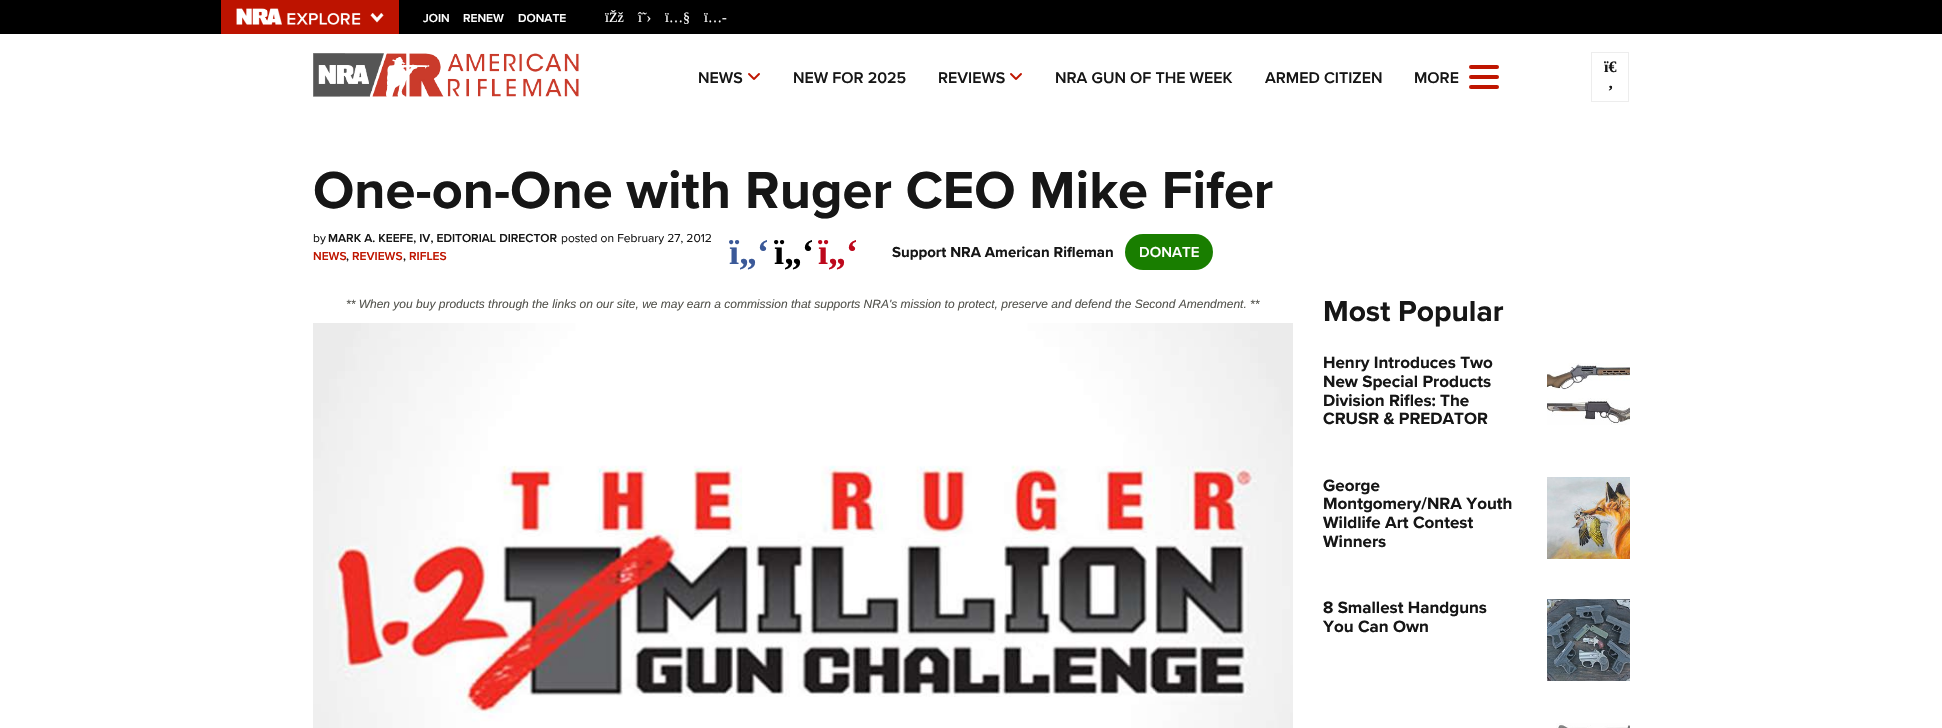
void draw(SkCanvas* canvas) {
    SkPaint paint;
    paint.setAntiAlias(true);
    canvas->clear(0xFFFFFFFF);
    paint.setColor(0xFF000000);
    canvas->drawRect(SkRect::MakeXYWH(0, 0, 1942, 34), paint);
    paint.setColor(0xFFBD1300);
    canvas->drawRect(SkRect::MakeXYWH(221, 0, 178, 34), paint);
    canvas->drawImageRect(SkImages::DeferredFromEncodedData(SkData::MakeFromFileName("img1.png")), SkRect::MakeXYWH(236, 8, 148, 17), SkSamplingOptions());
    SkFont font1(fontMgr->matchFamilyStyle("Proxima Nova", SkFontStyle(600, SkFontStyle::kNormal_Width, SkFontStyle::kUpright_Slant)), 12);
    font1.setSubpixel(true);
    paint.setColor(0xFFFFFFFF);
    canvas->drawString("JOIN", 423, 22, font1, paint);
    canvas->drawString("RENEW", 463, 22, font1, paint);
    canvas->drawString("DONATE", 518, 22, font1, paint);
    SkFont font2(fontMgr->matchFamilyStyle("Liberation Serif", SkFontStyle::Normal()), 14);
    font2.setSubpixel(true);
    canvas->drawString("ïŽž", 605, 22, font2, paint);
    canvas->drawString("î˜›", 638, 22, font2, paint);
    canvas->drawString("ï…§", 665, 22, font2, paint);
    canvas->drawString("ï…-", 704, 22, font2, paint);
    canvas->drawImageRect(SkImages::DeferredFromEncodedData(SkData::MakeFromFileName("img2.png")), SkRect::MakeXYWH(313, 53, 266, 44), SkSamplingOptions());
    SkFont font3(fontMgr->matchFamilyStyle("Proxima Nova", SkFontStyle(600, SkFontStyle::kNormal_Width, SkFontStyle::kUpright_Slant)), 16);
    font3.setSubpixel(true);
    paint.setColor(0xFF161616);
    canvas->drawString("NEWS", 698, 83, font3, paint);
    canvas->drawImageRect(SkImages::DeferredFromEncodedData(SkData::MakeFromFileName("img3.png")), SkRect::MakeXYWH(748, 73, 12, 7), SkSamplingOptions());
    canvas->drawString("NEW FOR 2025", 793, 83, font3, paint);
    canvas->drawString("REVIEWS", 938, 83, font3, paint);
    canvas->drawImageRect(SkImages::DeferredFromEncodedData(SkData::MakeFromFileName("img3.png")), SkRect::MakeXYWH(1010, 73, 12, 7), SkSamplingOptions());
    canvas->drawString("NRA GUN OF THE WEEK", 1055, 83, font3, paint);
    canvas->drawString("ARMED CITIZEN", 1265, 83, font3, paint);
    canvas->drawString("MORE", 1414, 83, font3, paint);
    paint.setColor(0xFFBF1500);
    canvas->drawRoundRect(SkRect::MakeXYWH(1469, 75, 30, 4), 2, 2, paint);
    canvas->drawRoundRect(SkRect::MakeXYWH(1469, 65, 30, 4), 2, 2, paint);
    canvas->drawRoundRect(SkRect::MakeXYWH(1469, 85, 30, 4), 2, 2, paint);
    paint.setStyle(SkPaint::kStroke_Style);
    paint.setStrokeWidth(1);
    paint.setColor(0xFFEDEDED);
    canvas->drawRect(SkRect::MakeXYWH(1591.5f, 52.5f, 37, 49), paint);
    SkFont font4(fontMgr->matchFamilyStyle("Liberation Serif", SkFontStyle::Bold()), 16);
    font4.setSubpixel(true);
    paint.setStyle(SkPaint::kFill_Style);
    paint.setColor(0xFF161616);
    canvas->drawString("ï€", 1604, 72, font4, paint);
    canvas->drawString("‚", 1608, 88, font4, paint);
    SkFont font5(fontMgr->matchFamilyStyle("Proxima Nova", SkFontStyle::Bold()), 54);
    font5.setSubpixel(true);
    canvas->drawString("One-on-One with Ruger CEO Mike Fifer", 313, 208, font5, paint);
    SkFont font6(fontMgr->matchFamilyStyle("Proxima Nova", SkFontStyle::Normal()), 12);
    font6.setSubpixel(true);
    canvas->drawString("by", 313, 242, font6, paint);
    canvas->drawString("MARK A. KEEFE, IV, EDITORIAL DIRECTOR", 328, 242, font1, paint);
    canvas->drawString("posted on February 27, 2012", 561, 242, font6, paint);
    paint.setColor(0xFFBF1500);
    canvas->drawString("NEWS", 313, 260, font1, paint);
    paint.setColor(0xFF161616);
    canvas->drawString(",", 346, 260, font1, paint);
    paint.setColor(0xFFBF1500);
    canvas->drawString("REVIEWS", 352, 260, font1, paint);
    paint.setColor(0xFF161616);
    canvas->drawString(",", 403, 260, font1, paint);
    paint.setColor(0xFFBF1500);
    canvas->drawString("RIFLES", 409, 260, font1, paint);
    SkFont font7(fontMgr->matchFamilyStyle("Liberation Serif", SkFontStyle::Bold()), 36);
    font7.setSubpixel(true);
    paint.setColor(0xFF3B5998);
    canvas->drawString("ï„‘", 729, 264, font7, paint);
    paint.setColor(0xFF000000);
    canvas->drawString("ï„‘", 774, 264, font7, paint);
    paint.setColor(0xFFBD081C);
    canvas->drawString("ï„‘", 818, 264, font7, paint);
    SkFont font8(fontMgr->matchFamilyStyle("Proxima Nova", SkFontStyle::Bold()), 15);
    font8.setSubpixel(true);
    paint.setColor(0xFF161616);
    canvas->drawString("Support NRA American Rifleman", 892, 257, font8, paint);
    paint.setColor(0xFF197E00);
    canvas->drawRoundRect(SkRect::MakeXYWH(1125, 234, 88, 36), 18, 18, paint);
    SkFont font9(fontMgr->matchFamilyStyle("Proxima Nova", SkFontStyle(600, SkFontStyle::kNormal_Width, SkFontStyle::kUpright_Slant)), 15);
    font9.setSubpixel(true);
    paint.setColor(0xFFFFFFFF);
    canvas->drawString("DONATE", 1139, 257, font9, paint);
    SkFont font10(fontMgr->matchFamilyStyle("Liberation Sans", SkFontStyle::Italic()), 12);
    font10.setSubpixel(true);
    paint.setColor(0xFF54544E);
    canvas->drawString("** When you buy products through the links on our site, we may earn a commission that supports NRA's mission to protect, preserve and defend the Second Amendment. **", 346, 308, font10, paint);
    canvas->drawImageRect(SkImages::DeferredFromEncodedData(SkData::MakeFromFileName("img4.png")), SkRect::MakeXYWH(313, 323, 980, 405), SkSamplingOptions());
    SkFont font11(fontMgr->matchFamilyStyle("Proxima Nova", SkFontStyle::Bold()), 30);
    font11.setSubpixel(true);
    paint.setColor(0xFF161616);
    canvas->drawString("Most Popular", 1323, 321, font11, paint);
    SkFont font12(fontMgr->matchFamilyStyle("Proxima Nova", SkFontStyle::Bold()), 17);
    font12.setSubpixel(true);
    canvas->drawString("Henry Introduces Two", 1323, 368, font12, paint);
    canvas->drawString("New Special Products", 1323, 387, font12, paint);
    canvas->drawString("Division Rifles: The", 1323, 406, font12, paint);
    canvas->drawString("CRUSR & PREDATOR", 1323, 424, font12, paint);
    canvas->drawImageRect(SkImages::DeferredFromEncodedData(SkData::MakeFromFileName("img5.png")), SkRect::MakeXYWH(1547, 363, 83, 62), SkSamplingOptions());
    canvas->drawString("George", 1323, 491, font12, paint);
    canvas->drawString("Montgomery/NRA Youth", 1323, 509, font12, paint);
    canvas->drawString("Wildlife Art Contest", 1323, 528, font12, paint);
    canvas->drawString("Winners", 1323, 547, font12, paint);
    canvas->drawImageRect(SkImages::DeferredFromEncodedData(SkData::MakeFromFileName("img6.png")), SkRect::MakeXYWH(1547, 477, 83, 82), SkSamplingOptions());
    canvas->drawString("8 Smallest Handguns", 1323, 613, font12, paint);
    canvas->drawString("You Can Own", 1323, 632, font12, paint);
    canvas->drawImageRect(SkImages::DeferredFromEncodedData(SkData::MakeFromFileName("img7.png")), SkRect::MakeXYWH(1547, 599, 83, 82), SkSamplingOptions());
    canvas->drawImageRect(SkImages::DeferredFromEncodedData(SkData::MakeFromFileName("img8.png")), SkRect::MakeXYWH(1556, 723, 74, 5), SkSamplingOptions());
}
